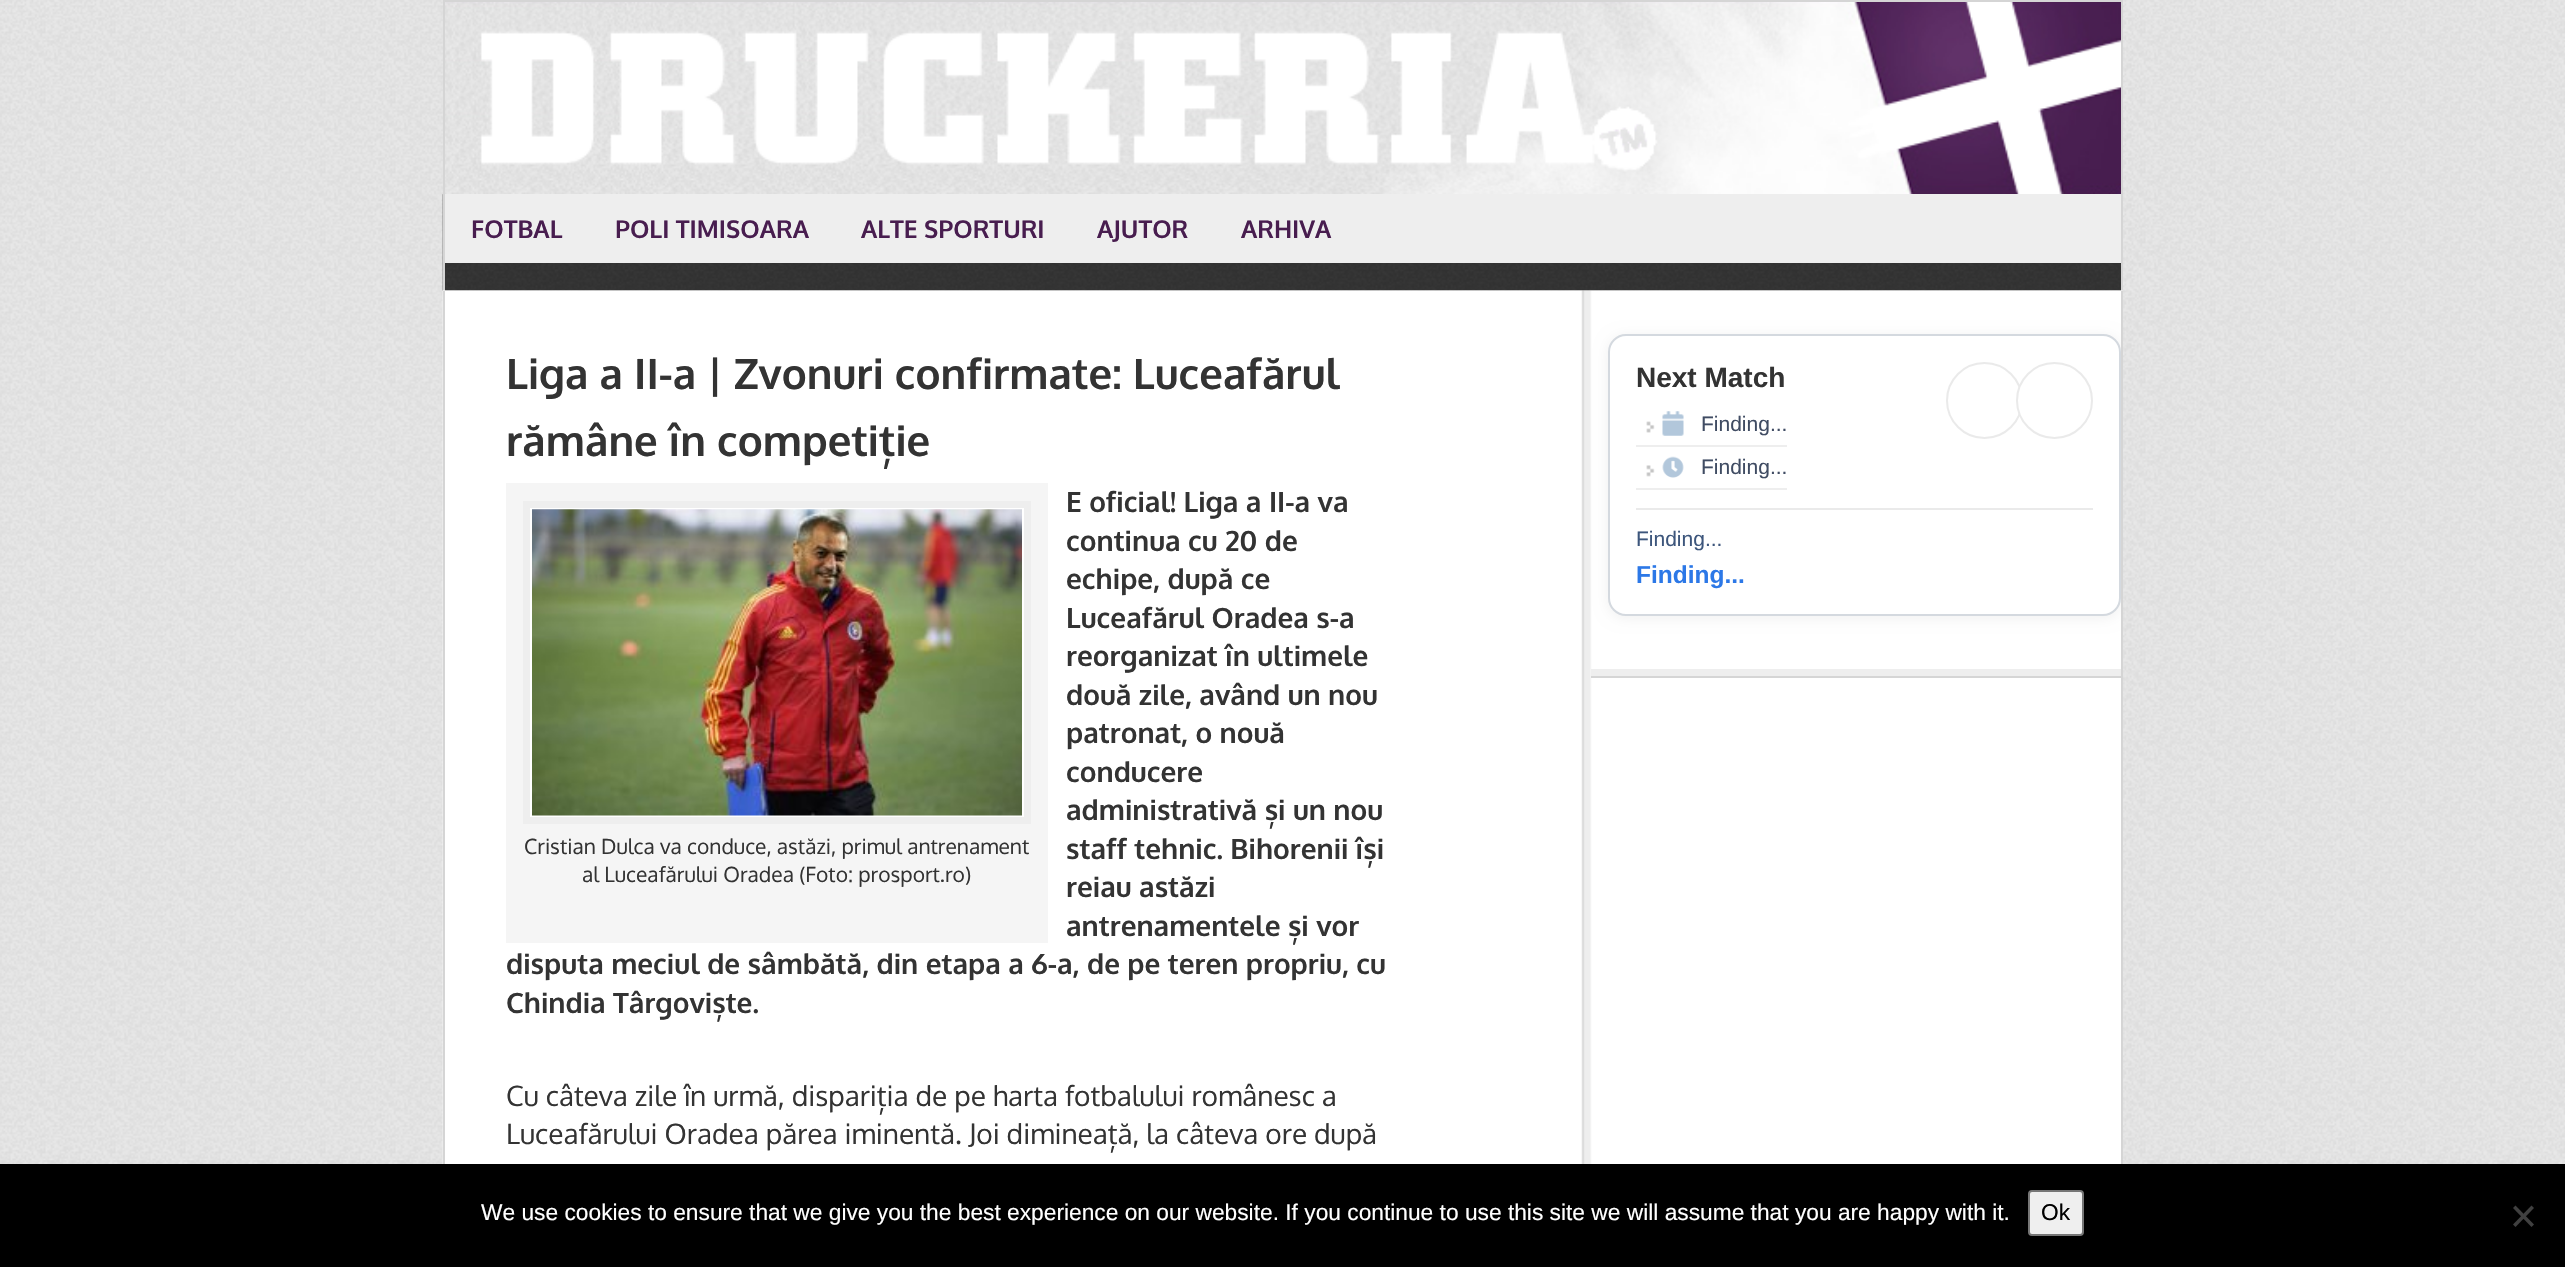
void draw(SkCanvas* canvas) {
    SkPaint paint;
    paint.setAntiAlias(true);
    canvas->clear(0xFFFFFFFF);
    canvas->drawImageRect(SkImages::DeferredFromEncodedData(SkData::MakeFromFileName("img1.png")), SkRect::MakeXYWH(0, 0, 2565, 1164), SkSamplingOptions());
    canvas->drawImageRect(SkImages::DeferredFromEncodedData(SkData::MakeFromFileName("img2.png")), SkRect::MakeXYWH(445, 2, 1676, 192), SkSamplingOptions());
    paint.setColor(0xFFD5D5D5);
    canvas->drawRect(SkRect::MakeXYWH(443, 0, 1680, 2), paint);
    canvas->drawRect(SkRect::MakeXYWH(2121, 0, 2, 291), paint);
    canvas->drawRect(SkRect::MakeXYWH(443, 0, 2, 194), paint);
    canvas->drawImageRect(SkImages::DeferredFromEncodedData(SkData::MakeFromFileName("img3.png")), SkRect::MakeXYWH(442, 194, 1679, 97), SkSamplingOptions());
    canvas->drawRect(SkRect::MakeXYWH(443, 194, 2, 97), paint);
    paint.setColor(0xFFEEEEEE);
    canvas->drawRect(SkRect::MakeXYWH(445, 194, 1676, 69), paint);
    SkFont font1(fontMgr->matchFamilyStyle("Oxygen", SkFontStyle::Bold()), 24.5f);
    font1.setSubpixel(true);
    paint.setColor(0xFF481D4F);
    canvas->drawString("FOTBAL", 471, 238, font1, paint);
    canvas->drawString("POLI TIMISOARA", 615, 238, font1, paint);
    canvas->drawString("ALTE SPORTURI", 861, 238, font1, paint);
    canvas->drawString("AJUTOR", 1097, 238, font1, paint);
    canvas->drawString("ARHIVA", 1241, 238, font1, paint);
    canvas->drawImageRect(SkImages::DeferredFromEncodedData(SkData::MakeFromFileName("img4.png")), SkRect::MakeXYWH(442, 290, 1681, 874), SkSamplingOptions());
    paint.setColor(0xFFD5D5D5);
    canvas->drawRect(SkRect::MakeXYWH(2121, 291, 2, 873), paint);
    canvas->drawRect(SkRect::MakeXYWH(443, 291, 2, 873), paint);
    SkFont font2(fontMgr->matchFamilyStyle("Oxygen", SkFontStyle::Bold()), 42);
    font2.setSubpixel(true);
    paint.setColor(0xFF333333);
    canvas->drawString("Liga a II-a | Zvonuri confirmate: Luceafărul", 506, 389, font2, paint);
    canvas->drawString("rămâne în competiție", 506, 456, font2, paint);
    SkFont font3(fontMgr->matchFamilyStyle("Oxygen", SkFontStyle::Bold()), 28);
    font3.setSubpixel(true);
    canvas->drawString("E oficial! Liga a II-a va", 1066, 512, font3, paint);
    canvas->drawString("continua cu 20 de", 1066, 551, font3, paint);
    canvas->drawString("echipe, după ce", 1066, 589, font3, paint);
    canvas->drawString("Luceafărul Oradea s-a", 1066, 628, font3, paint);
    canvas->drawString("reorganizat în ultimele", 1066, 666, font3, paint);
    canvas->drawString("două zile, având un nou", 1066, 705, font3, paint);
    canvas->drawString("patronat, o nouă", 1066, 743, font3, paint);
    canvas->drawString("conducere", 1066, 782, font3, paint);
    canvas->drawString("administrativă și un nou", 1066, 820, font3, paint);
    canvas->drawString("staff tehnic. Bihorenii își", 1066, 859, font3, paint);
    canvas->drawString("reiau astăzi", 1066, 897, font3, paint);
    canvas->drawString("antrenamentele și vor", 1066, 936, font3, paint);
    canvas->drawString("disputa meciul de sâmbătă, din etapa a 6-a, de pe teren propriu, cu", 506, 974, font3, paint);
    canvas->drawString("Chindia Târgoviște.", 506, 1013, font3, paint);
    paint.setColor(0xFFF5F5F5);
    canvas->drawRect(SkRect::MakeXYWH(506, 483, 542, 460), paint);
    paint.setColor(0xFFFFFFFF);
    canvas->drawRect(SkRect::MakeXYWH(526.5f, 504.5f, 501, 316), paint);
    paint.setStyle(SkPaint::kStroke_Style);
    paint.setStrokeWidth(7);
    paint.setColor(0xFFEEEEEE);
    canvas->drawRect(SkRect::MakeXYWH(526.5f, 504.5f, 501, 316), paint);
    canvas->drawImageRect(SkImages::DeferredFromEncodedData(SkData::MakeFromFileName("img5.png")), SkRect::MakeXYWH(532, 509, 490, 307), SkSamplingOptions());
    SkFont font4(fontMgr->matchFamilyStyle("Oxygen", SkFontStyle::Normal()), 21);
    font4.setSubpixel(true);
    paint.setStyle(SkPaint::kFill_Style);
    paint.setColor(0xFF333333);
    canvas->drawString("Cristian Dulca va conduce, astăzi, primul antrenament", 524, 854, font4, paint);
    canvas->drawString("al Luceafărului Oradea (Foto: prosport.ro)", 582, 882, font4, paint);
    SkFont font5(fontMgr->matchFamilyStyle("Oxygen", SkFontStyle::Normal()), 28);
    font5.setSubpixel(true);
    canvas->drawString("Cu câteva zile în urmă, dispariția de pe harta fotbalului românesc a", 506, 1106, font5, paint);
    canvas->drawString("Luceafărului Oradea părea iminentă. Joi dimineață, la câteva ore după", 506, 1144, font5, paint);
    paint.setColor(0xFFD5D5D5);
    canvas->drawRect(SkRect::MakeXYWH(1591, 676, 530, 2), paint);
    paint.setColor(0xFFEEEEEE);
    canvas->drawRect(SkRect::MakeXYWH(1591, 669, 530, 7), paint);
    canvas->save();
    canvas->clipRect(SkRect::MakeXYWH(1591, 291, 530, 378));
    paint.setColor(0x0F000000);
    paint.setMaskFilter(SkMaskFilter::MakeBlur(kNormal_SkBlurStyle, 7));
    canvas->drawRoundRect(SkRect::MakeXYWH(1608, 336, 513, 282), 18, 18, paint);
    paint.setMaskFilter(nullptr);
    canvas->restore();
    paint.setColor(0xFFFFFFFF);
    canvas->drawRoundRect(SkRect::MakeXYWH(1609, 335, 511, 280), 17, 17, paint);
    paint.setStyle(SkPaint::kStroke_Style);
    paint.setStrokeWidth(2);
    paint.setColor(0xFFD4D9DF);
    canvas->drawRoundRect(SkRect::MakeXYWH(1609, 335, 511, 280), 17, 17, paint);
    SkFont font6(fontMgr->matchFamilyStyle("Liberation Sans", SkFontStyle::Bold()), 28);
    font6.setSubpixel(true);
    paint.setStyle(SkPaint::kFill_Style);
    paint.setColor(0xFF333333);
    canvas->drawString("Next Match", 1636, 387, font6, paint);
    canvas->drawImageRect(SkImages::DeferredFromEncodedData(SkData::MakeFromFileName("img6.png")), SkRect::MakeXYWH(1646, 421, 9, 12), SkSamplingOptions());
    paint.setColor(0xFFEEEEEE);
    canvas->drawRect(SkRect::MakeXYWH(1636, 445, 151, 2), paint);
    canvas->drawImageRect(SkImages::DeferredFromEncodedData(SkData::MakeFromFileName("img7.png")), SkRect::MakeXYWH(1662, 411, 22, 25), SkSamplingOptions());
    SkFont font7(fontMgr->matchFamilyStyle("Liberation Sans", SkFontStyle::Normal()), 21);
    font7.setSubpixel(true);
    paint.setColor(0xFF404C63);
    canvas->drawString("Finding...", 1701, 431, font7, paint);
    canvas->drawImageRect(SkImages::DeferredFromEncodedData(SkData::MakeFromFileName("img8.png")), SkRect::MakeXYWH(1646, 465, 9, 12), SkSamplingOptions());
    paint.setColor(0xFFEEEEEE);
    canvas->drawRect(SkRect::MakeXYWH(1636, 488, 151, 2), paint);
    canvas->drawImageRect(SkImages::DeferredFromEncodedData(SkData::MakeFromFileName("img9.png")), SkRect::MakeXYWH(1662, 456, 22, 22), SkSamplingOptions());
    paint.setColor(0xFF404C63);
    canvas->drawString("Finding...", 1701, 474, font7, paint);
    paint.setStyle(SkPaint::kStroke_Style);
    paint.setColor(0xFFEAEAEA);
    canvas->drawCircle(1984.5f, 400.5f, 37.5f, paint);
    paint.setStyle(SkPaint::kFill_Style);
    paint.setColor(0xFFFFFFFF);
    canvas->drawCircle(2054.5f, 400.5f, 37.5f, paint);
    paint.setStyle(SkPaint::kStroke_Style);
    paint.setColor(0xFFEAEAEA);
    canvas->drawCircle(2054.5f, 400.5f, 37.5f, paint);
    paint.setStyle(SkPaint::kFill_Style);
    canvas->drawRect(SkRect::MakeXYWH(1636, 508, 457, 2), paint);
    paint.setColor(0xFF3D567C);
    canvas->drawString("Finding...", 1636, 546, font7, paint);
    SkFont font8(fontMgr->matchFamilyStyle("Liberation Sans", SkFontStyle::Bold()), 24.5f);
    font8.setSubpixel(true);
    paint.setColor(0xFF2C78E7);
    canvas->drawString("Finding...", 1636, 583, font8, paint);
    paint.setColor(0xFF000000);
    canvas->drawRect(SkRect::MakeXYWH(0, 1164, 2565, 103), paint);
    SkFont font9(fontMgr->matchFamilyStyle("Liberation Sans", SkFontStyle::Normal()), 22.75f);
    font9.setSubpixel(true);
    paint.setColor(0xFFFFFFFF);
    canvas->drawString("We use cookies to ensure that we give you the best experience on our website. If you continue to use this site we will assume that you are happy with it.", 481, 1220, font9, paint);
    paint.setColor(0xFFEFEFEF);
    canvas->drawRoundRect(SkRect::MakeXYWH(2029, 1191, 54, 44), 3, 3, paint);
    paint.setStyle(SkPaint::kStroke_Style);
    paint.setColor(0xFF767676);
    canvas->drawRoundRect(SkRect::MakeXYWH(2029, 1191, 54, 44), 3, 3, paint);
    paint.setStyle(SkPaint::kFill_Style);
    paint.setColor(0xFF000000);
    canvas->drawString("Ok", 2041, 1220, font9, paint);
    paint.setColor(0xFF404040);
    canvas->drawPath(SkPathBuilder().moveTo(2531.5f, 1205.5f).lineTo(2534, 1208).lineTo(2515.5f, 1227).lineTo(2513, 1224.5f).close().detach(), paint);
    canvas->drawPath(SkPathBuilder().moveTo(2513, 1208).lineTo(2515.5f, 1205.5f).lineTo(2534, 1224.5f).lineTo(2531.5f, 1227).close().detach(), paint);
}
